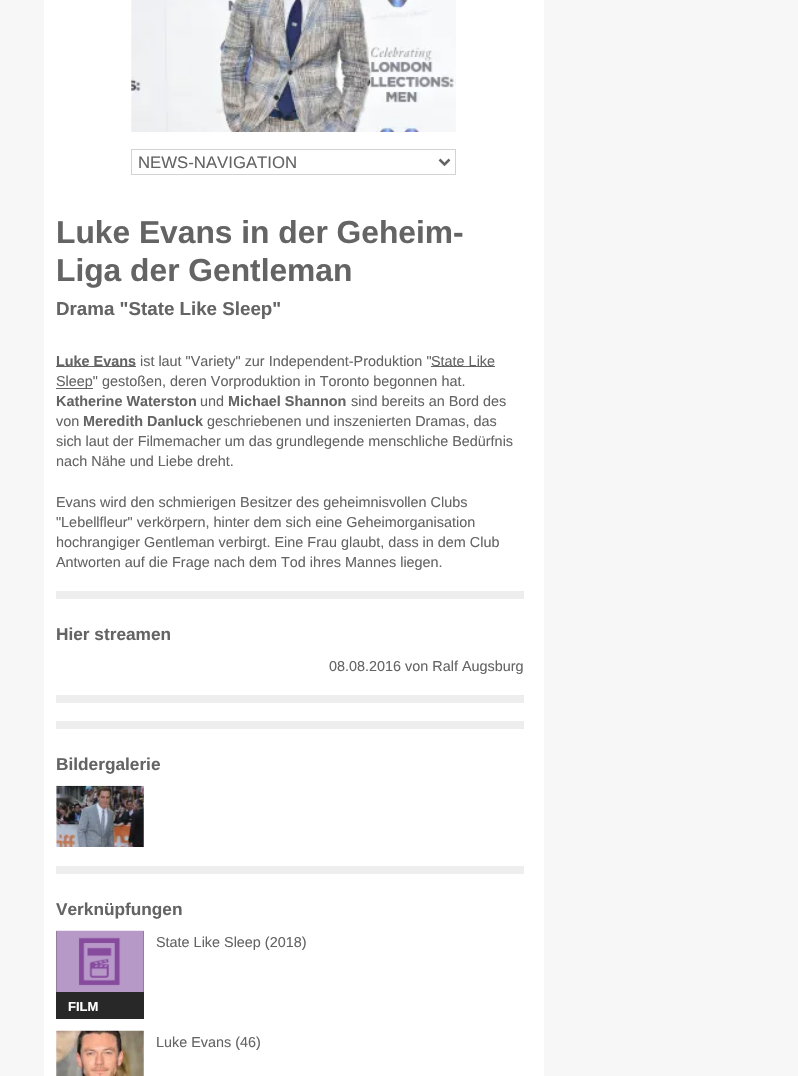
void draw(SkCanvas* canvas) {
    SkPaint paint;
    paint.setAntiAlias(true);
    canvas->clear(0xFFF7F7F7);
    paint.setColor(0xFFFFFFFF);
    canvas->drawRect(SkRect::MakeXYWH(44, 0, 500, 1076), paint);
    canvas->drawImageRect(SkImages::DeferredFromEncodedData(SkData::MakeFromFileName("img1.png")), SkRect::MakeXYWH(131, 0, 325, 132), SkSamplingOptions());
    paint.setStyle(SkPaint::kStroke_Style);
    paint.setStrokeWidth(1);
    paint.setColor(0xFFD3D3D3);
    canvas->drawRect(SkRect::MakeXYWH(131.5f, 149.5f, 324, 25), paint);
    paint.setStrokeWidth(2.5f);
    paint.setColor(0xFF646464);
    canvas->drawPath(SkPathBuilder().moveTo(439.5f, 159.5f).lineTo(444.5f, 164.5f).lineTo(449.5f, 159.5f).detach(), paint);
    SkFont font1(fontMgr->matchFamilyStyle("Liberation Sans", SkFontStyle::Normal()), 16.75f);
    font1.setSubpixel(true);
    paint.setStyle(SkPaint::kFill_Style);
    canvas->drawString("NEWS-NAVIGATION", 138, 168, font1, paint);
    SkFont font2(fontMgr->matchFamilyStyle("Liberation Sans", SkFontStyle::Bold()), 31.75f);
    font2.setSubpixel(true);
    canvas->drawString("Luke Evans in der Geheim-", 56, 243, font2, paint);
    canvas->drawString("Liga der Gentleman", 56, 281, font2, paint);
    SkFont font3(fontMgr->matchFamilyStyle("Liberation Sans", SkFontStyle::Bold()), 18.75f);
    font3.setSubpixel(true);
    canvas->drawString("Drama \"State Like Sleep\"", 56, 315, font3, paint);
    canvas->drawRect(SkRect::MakeXYWH(56, 366, 80, 1), paint);
    SkFont font4(fontMgr->matchFamilyStyle("Liberation Sans", SkFontStyle::Bold()), 14.4f);
    font4.setSubpixel(true);
    canvas->drawString("Luke Evans", 56, 366, font4, paint);
    SkFont font5(fontMgr->matchFamilyStyle("Liberation Sans", SkFontStyle::Normal()), 14.4f);
    font5.setSubpixel(true);
    canvas->drawString("ist laut \"Variety\" zur Independent-Produktion \"", 140, 366, font5, paint);
    canvas->drawRect(SkRect::MakeXYWH(431, 366, 64, 1), paint);
    canvas->drawString("State Like", 431, 366, font5, paint);
    canvas->drawRect(SkRect::MakeXYWH(56, 388, 37, 1), paint);
    canvas->drawString("Sleep\" gestoßen, deren Vorproduktion in Toronto begonnen hat.", 56, 386, font5, paint);
    canvas->drawString("Katherine Waterston", 56, 406, font4, paint);
    canvas->drawString("und", 200, 406, font5, paint);
    canvas->drawString("Michael Shannon", 228, 406, font4, paint);
    canvas->drawString("sind bereits an Bord des", 351, 406, font5, paint);
    canvas->drawString("von", 56, 426, font5, paint);
    canvas->drawString("Meredith Danluck", 83, 426, font4, paint);
    canvas->drawString("geschriebenen und inszenierten Dramas, das", 207, 426, font5, paint);
    canvas->drawString("sich laut der Filmemacher um das grundlegende menschliche Bedürfnis", 56, 446, font5, paint);
    canvas->drawString("nach Nähe und Liebe dreht.", 56, 466, font5, paint);
    canvas->drawString("Evans wird den schmierigen Besitzer des geheimnisvollen Clubs", 56, 507, font5, paint);
    canvas->drawString("\"Lebellfleur\" verkörpern, hinter dem sich eine Geheimorganisation", 56, 527, font5, paint);
    canvas->drawString("hochrangiger Gentleman verbirgt. Eine Frau glaubt, dass in dem Club", 56, 547, font5, paint);
    canvas->drawString("Antworten auf die Frage nach dem Tod ihres Mannes liegen.", 56, 567, font5, paint);
    paint.setColor(0xFFEEEEEE);
    canvas->drawRect(SkRect::MakeXYWH(56, 591, 468, 8), paint);
    SkFont font6(fontMgr->matchFamilyStyle("Liberation Sans", SkFontStyle::Bold()), 17.25f);
    font6.setSubpixel(true);
    paint.setColor(0xFF646464);
    canvas->drawString("Hier streamen", 56, 640, font6, paint);
    canvas->drawString("08.08.2016 von Ralf Augsburg", 329, 671, font5, paint);
    paint.setColor(0xFFEEEEEE);
    canvas->drawRect(SkRect::MakeXYWH(56, 695, 468, 8), paint);
    canvas->drawRect(SkRect::MakeXYWH(56, 721, 468, 8), paint);
    paint.setColor(0xFF646464);
    canvas->drawString("Bildergalerie", 56, 770, font6, paint);
    canvas->drawImageRect(SkImages::DeferredFromEncodedData(SkData::MakeFromFileName("img2.png")), SkRect::MakeXYWH(56, 785, 88, 62), SkSamplingOptions());
    paint.setColor(0xFFEEEEEE);
    canvas->drawRect(SkRect::MakeXYWH(56, 866, 468, 8), paint);
    paint.setColor(0xFF646464);
    canvas->drawString("Verknüpfungen", 56, 915, font6, paint);
    canvas->drawString("State Like Sleep (2018)", 156, 947, font5, paint);
    paint.setColor(0xFF282828);
    canvas->drawRect(SkRect::MakeXYWH(56, 931, 88, 88), paint);
    canvas->drawImageRect(SkImages::DeferredFromEncodedData(SkData::MakeFromFileName("img3.png")), SkRect::MakeXYWH(56, 930, 88, 62), SkSamplingOptions());
    SkFont font7(fontMgr->matchFamilyStyle("Liberation Sans", SkFontStyle::Bold()), 13);
    font7.setSubpixel(true);
    paint.setColor(0xFFFFFFFF);
    canvas->drawString("FILM", 68, 1011, font7, paint);
    canvas->drawImageRect(SkImages::DeferredFromEncodedData(SkData::MakeFromFileName("img4.png")), SkRect::MakeXYWH(56, 1030, 88, 46), SkSamplingOptions());
    paint.setColor(0xFF646464);
    canvas->drawString("Luke Evans (46)", 156, 1047, font5, paint);
}
